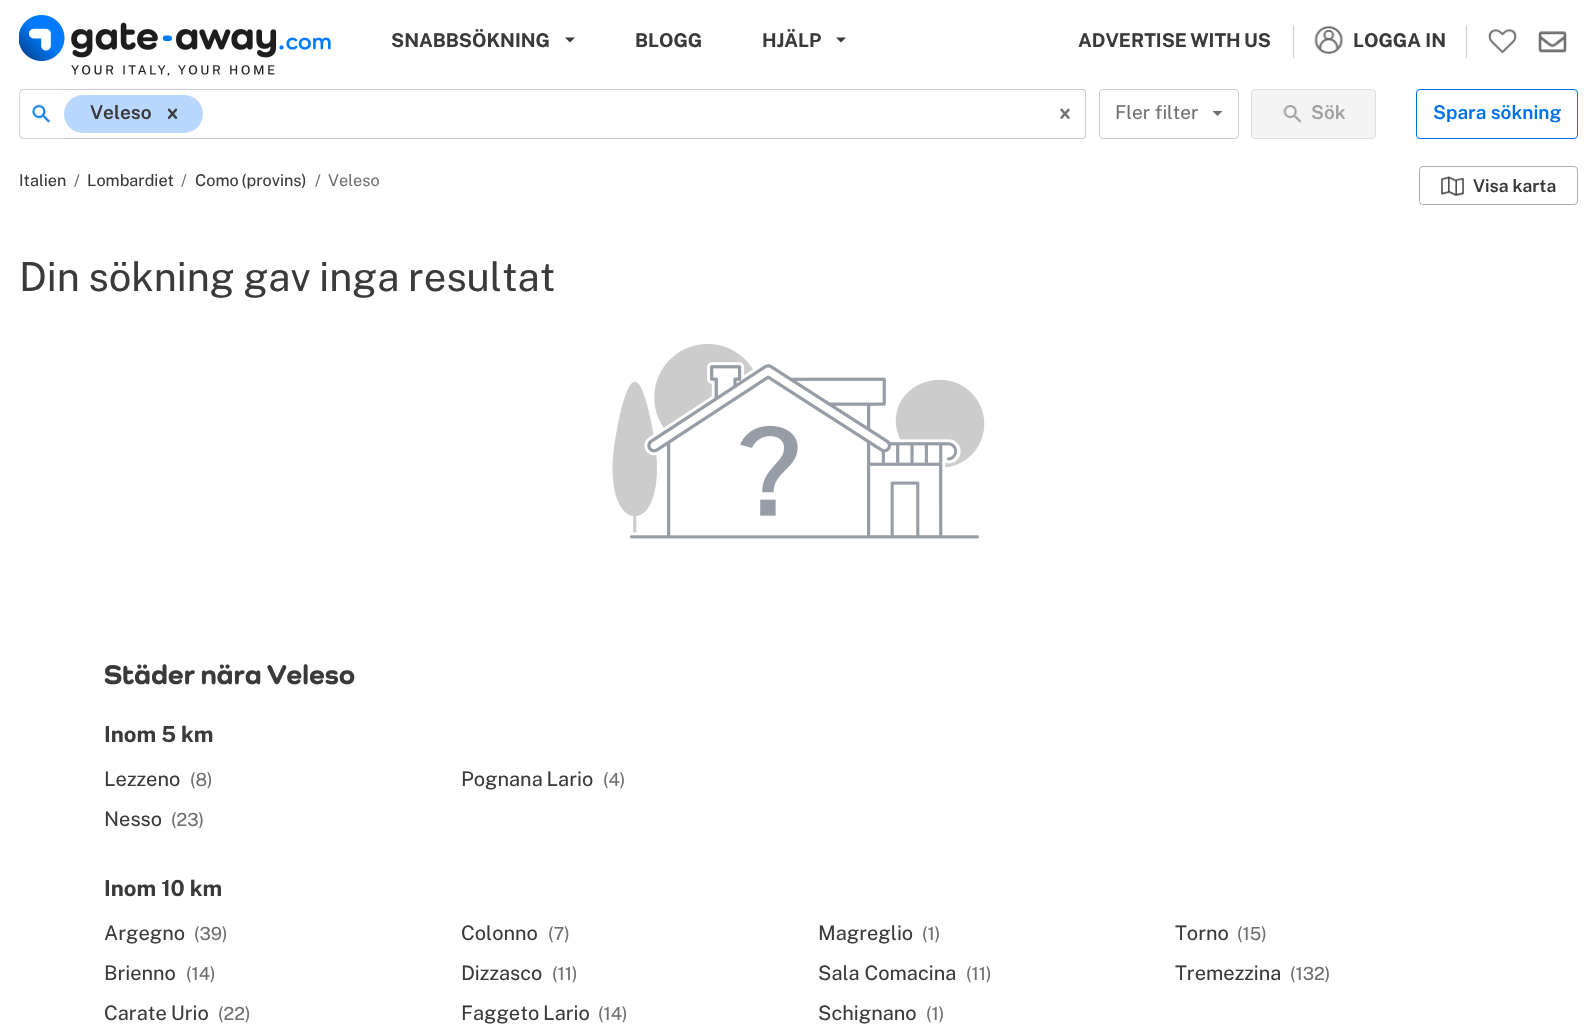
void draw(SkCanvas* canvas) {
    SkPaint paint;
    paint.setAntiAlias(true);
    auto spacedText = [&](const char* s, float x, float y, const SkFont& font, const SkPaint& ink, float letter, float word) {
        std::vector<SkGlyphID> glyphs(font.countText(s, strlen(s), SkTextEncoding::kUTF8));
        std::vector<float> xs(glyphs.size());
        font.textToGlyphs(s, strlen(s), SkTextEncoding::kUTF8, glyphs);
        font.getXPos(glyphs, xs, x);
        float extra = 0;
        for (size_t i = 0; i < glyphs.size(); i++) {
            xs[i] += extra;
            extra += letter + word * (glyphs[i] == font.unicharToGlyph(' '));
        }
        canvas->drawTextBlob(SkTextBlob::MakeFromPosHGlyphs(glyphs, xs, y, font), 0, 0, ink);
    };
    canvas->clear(0xFFFFFFFF);
    canvas->drawImageRect(SkImages::DeferredFromEncodedData(SkData::MakeFromFileName("img1.png")), SkRect::MakeXYWH(19, 15, 312, 61), SkSamplingOptions());
    SkFont font1(fontMgr->matchFamilyStyle("Public Sans", SkFontStyle::Bold()), 19);
    font1.setSubpixel(true);
    paint.setColor(0xFF3A3A3A);
    canvas->drawString("SNABBSÖKNING", 391, 47, font1, paint);
    canvas->drawPath(SkPathBuilder().moveTo(565, 37.5f).lineTo(575, 37.5f).lineTo(570, 42.5f).close().detach(), paint);
    canvas->drawString("BLOGG", 635, 47, font1, paint);
    canvas->drawString("HJÄLP", 762, 47, font1, paint);
    canvas->drawPath(SkPathBuilder().moveTo(836, 37.5f).lineTo(846, 37.5f).lineTo(841, 42.5f).close().detach(), paint);
    paint.setColor(0xFFCCCCCC);
    canvas->drawRect(SkRect::MakeXYWH(1293, 25, 1, 33), paint);
    paint.setColor(0xFF3A3A3A);
    spacedText("ADVERTISE WITH US", 1078, 47, font1, paint, 0, -1);
    paint.setColor(0xFFCCCCCC);
    canvas->drawRect(SkRect::MakeXYWH(1466, 25, 1, 33), paint);
    canvas->drawImageRect(SkImages::DeferredFromEncodedData(SkData::MakeFromFileName("img2.png")), SkRect::MakeXYWH(1314, 26, 29, 28), SkSamplingOptions());
    paint.setColor(0xFF3A3A3A);
    canvas->drawString("LOGGA IN", 1353, 47, font1, paint);
    canvas->drawImageRect(SkImages::DeferredFromEncodedData(SkData::MakeFromFileName("img3.png")), SkRect::MakeXYWH(1488, 29, 29, 25), SkSamplingOptions());
    canvas->drawImageRect(SkImages::DeferredFromEncodedData(SkData::MakeFromFileName("img4.png")), SkRect::MakeXYWH(1538, 31, 29, 22), SkSamplingOptions());
    paint.setColor(0xFFCED4DA);
    canvas->drawPath(SkPathBuilder(SkPathFillType::kEvenOdd).moveTo(24, 89).lineTo(61, 89).lineTo(61, 139).lineTo(24, 139).cubicTo(21, 139, 19, 137, 19, 134).lineTo(19, 94).cubicTo(19, 91, 21, 89, 24, 89).close().moveTo(24, 90).lineTo(61, 90).lineTo(61, 138).lineTo(24, 138).cubicTo(22, 138, 20, 136, 20, 134).lineTo(20, 94).cubicTo(20, 92, 22, 90, 24, 90).close().detach(), paint);
    canvas->drawImageRect(SkImages::DeferredFromEncodedData(SkData::MakeFromFileName("img5.png")), SkRect::MakeXYWH(32, 104, 19, 19), SkSamplingOptions());
    paint.setColor(0xFFFFFFFF);
    canvas->drawPath(SkPathBuilder().moveTo(60, 89).lineTo(1082, 89).cubicTo(1084, 89, 1086, 91, 1086, 93).lineTo(1086, 135).cubicTo(1086, 137, 1084, 139, 1082, 139).lineTo(60, 139).close().detach(), paint);
    paint.setColor(0xFFCCCCCC);
    canvas->drawPath(SkPathBuilder(SkPathFillType::kEvenOdd).moveTo(60, 89).lineTo(1082, 89).cubicTo(1085, 89, 1086, 90, 1086, 92).lineTo(1086, 135).cubicTo(1086, 137, 1085, 139, 1082, 139).lineTo(60, 139).close().moveTo(60, 90).lineTo(1082, 90).cubicTo(1084, 90, 1085, 91, 1085, 92).lineTo(1085, 135).cubicTo(1085, 136, 1084, 138, 1082, 138).lineTo(60, 138).close().detach(), paint);
    paint.setColor(0xFFB9D7FF);
    canvas->drawRoundRect(SkRect::MakeXYWH(64, 95, 139, 38), 19, 19, paint);
    SkFont font2(fontMgr->matchFamilyStyle("Public Sans", SkFontStyle(600, SkFontStyle::kNormal_Width, SkFontStyle::kUpright_Slant)), 19);
    font2.setSubpixel(true);
    paint.setColor(0xFF3A3A3A);
    canvas->drawString("Veleso", 90, 119, font2, paint);
    canvas->drawImageRect(SkImages::DeferredFromEncodedData(SkData::MakeFromFileName("img6.png")), SkRect::MakeXYWH(167, 108, 11, 11), SkSamplingOptions());
    canvas->drawImageRect(SkImages::DeferredFromEncodedData(SkData::MakeFromFileName("img7.png")), SkRect::MakeXYWH(1060, 108, 10, 11), SkSamplingOptions());
    paint.setStyle(SkPaint::kStroke_Style);
    paint.setStrokeWidth(1);
    paint.setColor(0xFFCCCCCC);
    canvas->drawRoundRect(SkRect::MakeXYWH(1099.5f, 89.5f, 139, 49), 3.5f, 3.5f, paint);
    SkFont font3(fontMgr->matchFamilyStyle("Public Sans", SkFontStyle::Normal()), 19);
    font3.setSubpixel(true);
    paint.setStyle(SkPaint::kFill_Style);
    paint.setColor(0xFF6F6F6F);
    canvas->drawString("Fler filter", 1115, 119, font3, paint);
    canvas->drawPath(SkPathBuilder().moveTo(1212.5f, 111).lineTo(1222.5f, 111).lineTo(1217.5f, 116).close().detach(), paint);
    paint.setColor(0xFFF4F4F4);
    canvas->drawRoundRect(SkRect::MakeXYWH(1251.5f, 89.5f, 124, 49), 3.5f, 3.5f, paint);
    paint.setStyle(SkPaint::kStroke_Style);
    paint.setColor(0xFFDEDEDE);
    canvas->drawRoundRect(SkRect::MakeXYWH(1251.5f, 89.5f, 124, 49), 3.5f, 3.5f, paint);
    canvas->drawImageRect(SkImages::DeferredFromEncodedData(SkData::MakeFromFileName("img8.png")), SkRect::MakeXYWH(1283, 105, 19, 18), SkSamplingOptions());
    paint.setStyle(SkPaint::kFill_Style);
    paint.setColor(0xFFA1A1A1);
    canvas->drawString("Sök", 1311, 119, font2, paint);
    paint.setStyle(SkPaint::kStroke_Style);
    paint.setColor(0xFF0071EB);
    canvas->drawRoundRect(SkRect::MakeXYWH(1416.5f, 89.5f, 161, 49), 3.5f, 3.5f, paint);
    paint.setStyle(SkPaint::kFill_Style);
    canvas->drawString("Spara sökning", 1433, 119, font2, paint);
    SkFont font4(fontMgr->matchFamilyStyle("Public Sans", SkFontStyle::Normal()), 16.25f);
    font4.setSubpixel(true);
    paint.setColor(0xFF3A3A3A);
    canvas->drawString("Italien", 19, 186, font4, paint);
    paint.setColor(0xFF6F6F6F);
    canvas->drawString("/", 74, 186, font4, paint);
    paint.setColor(0xFF3A3A3A);
    canvas->drawString("Lombardiet", 87, 186, font4, paint);
    paint.setColor(0xFF6F6F6F);
    canvas->drawString("/", 181, 186, font4, paint);
    paint.setColor(0xFF3A3A3A);
    spacedText("Como (provins)", 195, 186, font4, paint, 0, -1);
    paint.setColor(0xFF6F6F6F);
    canvas->drawString("/", 315, 186, font4, paint);
    canvas->drawString("Veleso", 328, 186, font4, paint);
    paint.setStyle(SkPaint::kStroke_Style);
    paint.setColor(0xFFADADAD);
    canvas->drawRoundRect(SkRect::MakeXYWH(1419.5f, 166.5f, 158, 38), 3.5f, 3.5f, paint);
    canvas->drawImageRect(SkImages::DeferredFromEncodedData(SkData::MakeFromFileName("img9.png")), SkRect::MakeXYWH(1441, 176, 23, 21), SkSamplingOptions());
    SkFont font5(fontMgr->matchFamilyStyle("Public Sans", SkFontStyle(600, SkFontStyle::kNormal_Width, SkFontStyle::kUpright_Slant)), 17.5f);
    font5.setSubpixel(true);
    paint.setStyle(SkPaint::kFill_Style);
    paint.setColor(0xFF3A3A3A);
    canvas->drawString("Visa karta", 1473, 192, font5, paint);
    SkFont font6(fontMgr->matchFamilyStyle("Public Sans", SkFontStyle::Normal()), 40);
    font6.setSubpixel(true);
    spacedText("Din sökning gav inga resultat", 19, 291, font6, paint, 0, -1);
    canvas->drawImageRect(SkImages::DeferredFromEncodedData(SkData::MakeFromFileName("img10.png")), SkRect::MakeXYWH(612, 344, 373, 195), SkSamplingOptions());
    SkFont font7(fontMgr->matchFamilyStyle("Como", SkFontStyle(800, SkFontStyle::kNormal_Width, SkFontStyle::kUpright_Slant)), 28);
    font7.setSubpixel(true);
    spacedText("Städer nära Veleso", 104, 684, font7, paint, 0, -1);
    SkFont font8(fontMgr->matchFamilyStyle("Public Sans", SkFontStyle::Bold()), 22);
    font8.setSubpixel(true);
    canvas->drawString("Inom 5 km", 104, 742, font8, paint);
    SkFont font9(fontMgr->matchFamilyStyle("Public Sans", SkFontStyle::Normal()), 20);
    font9.setSubpixel(true);
    canvas->drawString("Lezzeno", 104, 786, font9, paint);
    SkFont font10(fontMgr->matchFamilyStyle("Public Sans", SkFontStyle::Normal()), 18);
    font10.setSubpixel(true);
    paint.setColor(0xFF6F6F6F);
    canvas->drawString("(8)", 190, 786, font10, paint);
    paint.setColor(0xFF3A3A3A);
    spacedText("Pognana Lario", 461, 786, font9, paint, 0, -1);
    paint.setColor(0xFF6F6F6F);
    canvas->drawString("(4)", 603, 786, font10, paint);
    paint.setColor(0xFF3A3A3A);
    canvas->drawString("Nesso", 104, 826, font9, paint);
    paint.setColor(0xFF6F6F6F);
    canvas->drawString("(23)", 171, 826, font10, paint);
    paint.setColor(0xFF3A3A3A);
    canvas->drawString("Inom 10 km", 104, 896, font8, paint);
    canvas->drawString("Argegno", 104, 940, font9, paint);
    paint.setColor(0xFF6F6F6F);
    canvas->drawString("(39)", 194, 940, font10, paint);
    paint.setColor(0xFF3A3A3A);
    canvas->drawString("Colonno", 461, 940, font9, paint);
    paint.setColor(0xFF6F6F6F);
    canvas->drawString("(7)", 548, 940, font10, paint);
    paint.setColor(0xFF3A3A3A);
    canvas->drawString("Magreglio", 818, 940, font9, paint);
    paint.setColor(0xFF6F6F6F);
    canvas->drawString("(1)", 922, 940, font10, paint);
    paint.setColor(0xFF3A3A3A);
    canvas->drawString("Torno", 1175, 940, font9, paint);
    paint.setColor(0xFF6F6F6F);
    canvas->drawString("(15)", 1237, 940, font10, paint);
    paint.setColor(0xFF3A3A3A);
    canvas->drawString("Brienno", 104, 980, font9, paint);
    paint.setColor(0xFF6F6F6F);
    canvas->drawString("(14)", 186, 980, font10, paint);
    paint.setColor(0xFF3A3A3A);
    canvas->drawString("Dizzasco", 461, 980, font9, paint);
    paint.setColor(0xFF6F6F6F);
    canvas->drawString("(11)", 552, 980, font10, paint);
    paint.setColor(0xFF3A3A3A);
    canvas->drawString("Sala Comacina", 818, 980, font9, paint);
    paint.setColor(0xFF6F6F6F);
    canvas->drawString("(11)", 966, 980, font10, paint);
    paint.setColor(0xFF3A3A3A);
    canvas->drawString("Tremezzina", 1175, 980, font9, paint);
    paint.setColor(0xFF6F6F6F);
    canvas->drawString("(132)", 1290, 980, font10, paint);
    paint.setColor(0xFF3A3A3A);
    spacedText("Carate Urio", 104, 1020, font9, paint, 0, -1);
    paint.setColor(0xFF6F6F6F);
    canvas->drawString("(22)", 218, 1020, font10, paint);
    paint.setColor(0xFF3A3A3A);
    spacedText("Faggeto Lario", 461, 1020, font9, paint, 0, -1);
    paint.setColor(0xFF6F6F6F);
    canvas->drawString("(14)", 598, 1020, font10, paint);
    paint.setColor(0xFF3A3A3A);
    canvas->drawString("Schignano", 818, 1020, font9, paint);
    paint.setColor(0xFF6F6F6F);
    canvas->drawString("(1)", 926, 1020, font10, paint);
}
